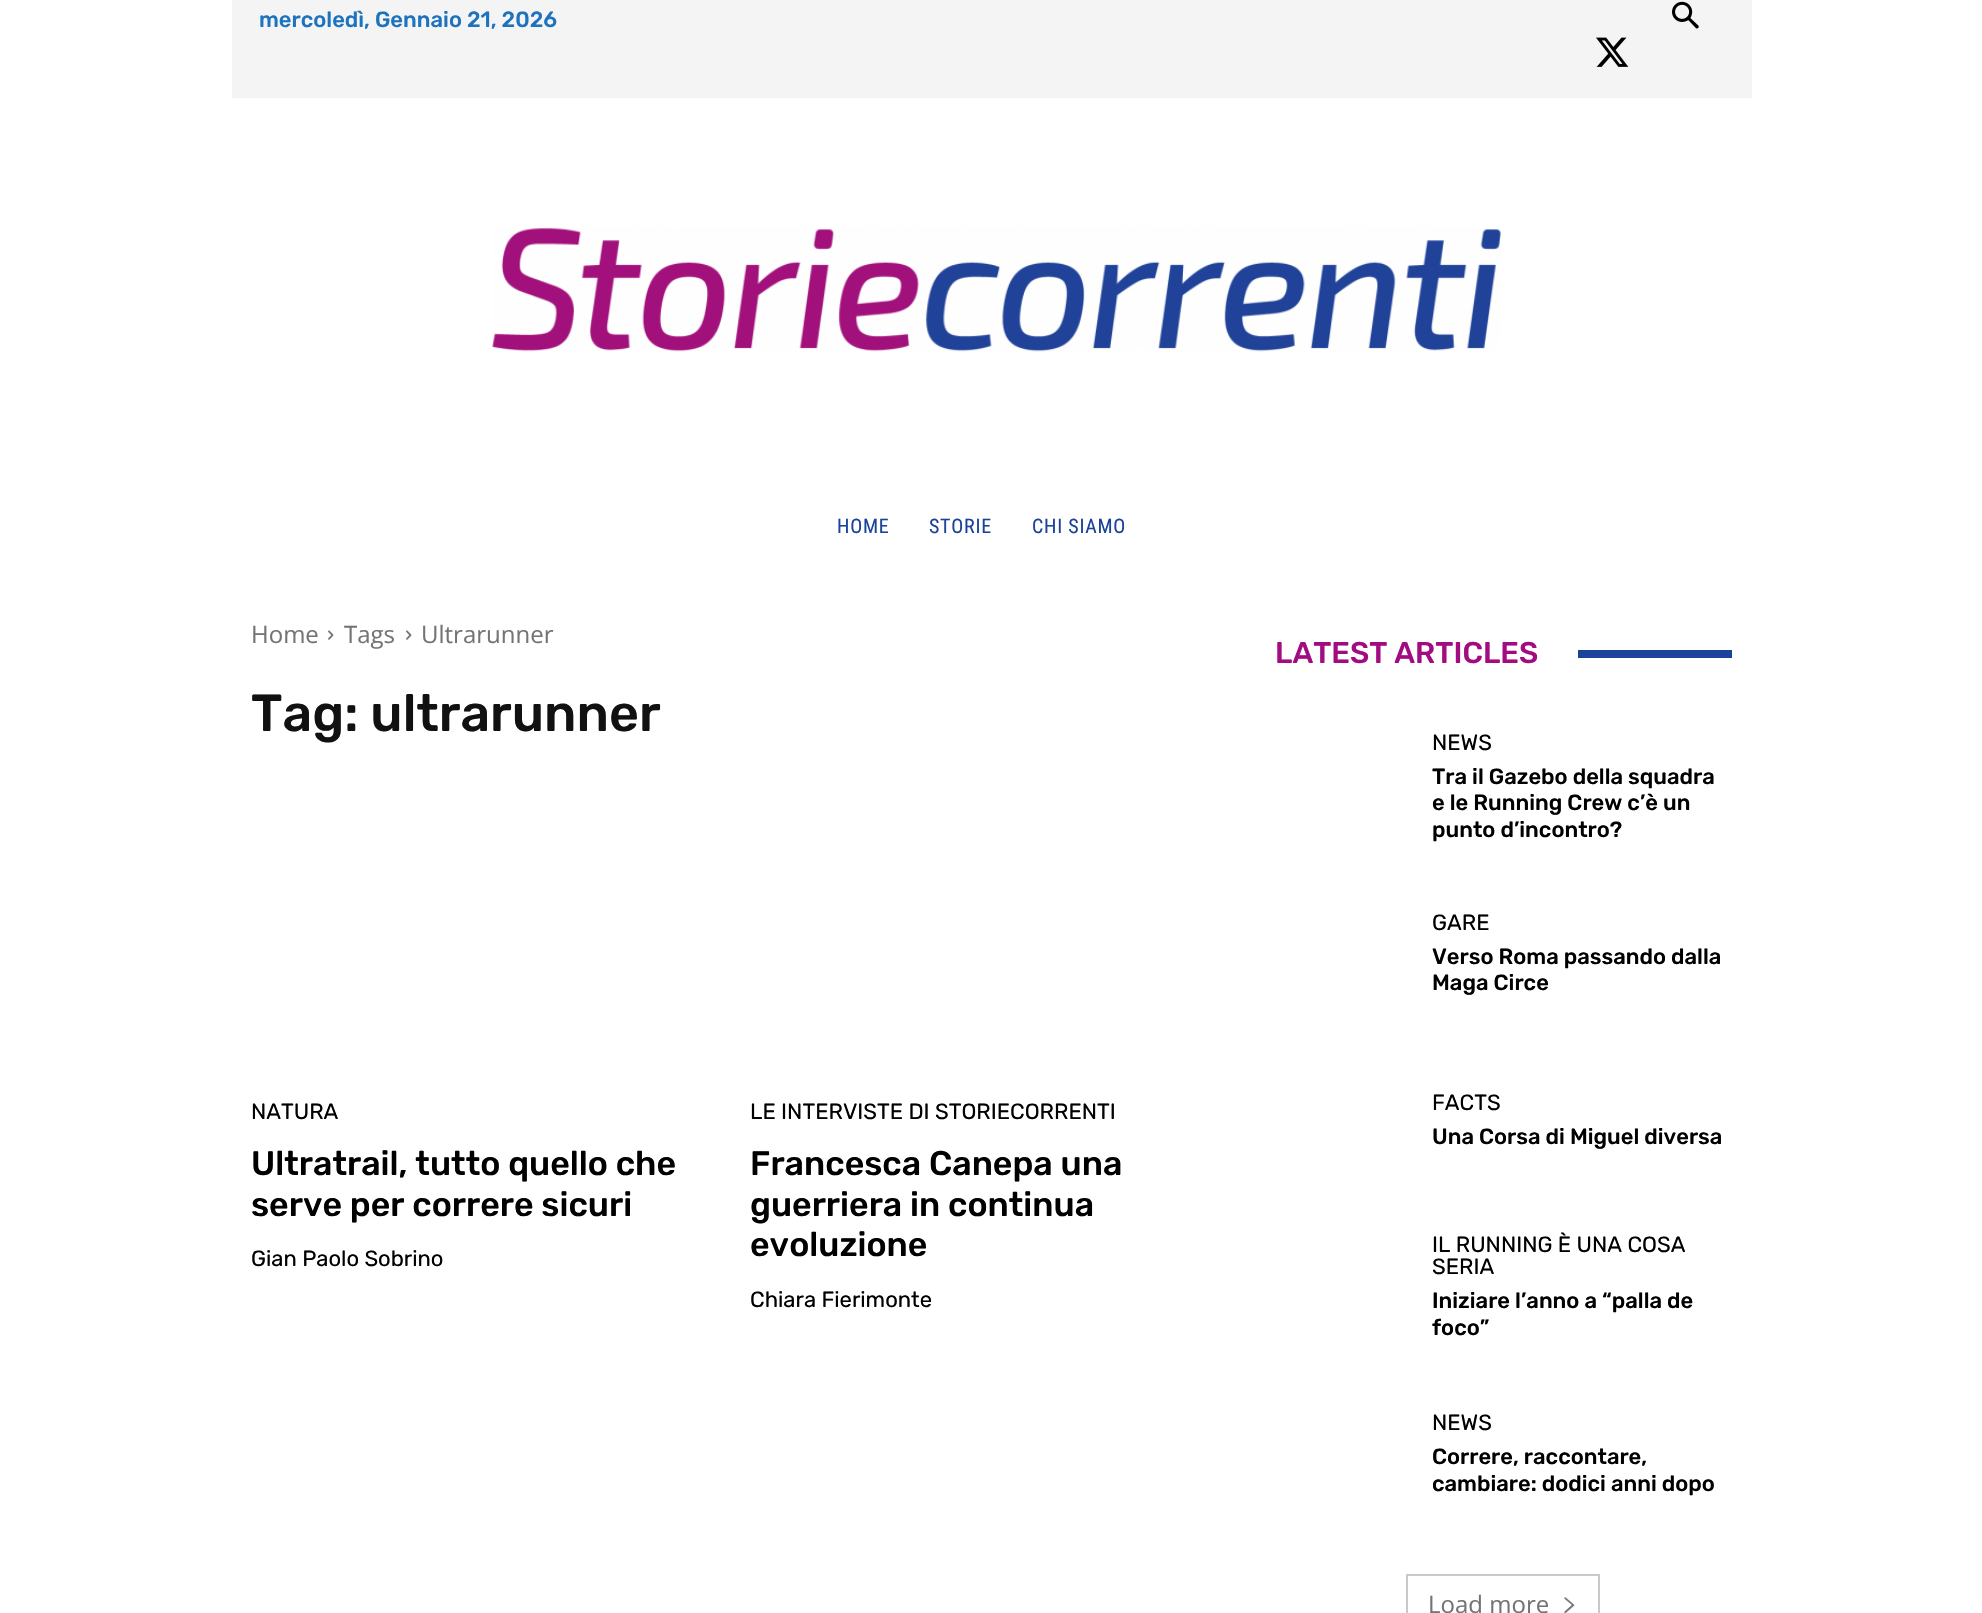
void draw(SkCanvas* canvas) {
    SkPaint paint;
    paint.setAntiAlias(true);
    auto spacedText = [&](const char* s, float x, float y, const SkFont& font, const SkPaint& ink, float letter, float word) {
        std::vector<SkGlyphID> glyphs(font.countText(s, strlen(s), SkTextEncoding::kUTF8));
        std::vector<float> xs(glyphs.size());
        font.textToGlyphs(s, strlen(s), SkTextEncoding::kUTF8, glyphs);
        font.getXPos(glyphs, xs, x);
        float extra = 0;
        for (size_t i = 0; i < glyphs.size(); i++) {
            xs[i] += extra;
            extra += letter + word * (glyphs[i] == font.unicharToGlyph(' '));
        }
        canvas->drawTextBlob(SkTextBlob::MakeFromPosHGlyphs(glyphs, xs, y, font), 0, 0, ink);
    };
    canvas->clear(0xFFFFFFFF);
    paint.setColor(0xFFF4F4F4);
    canvas->drawRect(SkRect::MakeXYWH(232, 0, 1520, 98), paint);
    SkFont font1(fontMgr->matchFamilyStyle("Rubik", SkFontStyle(500, SkFontStyle::kNormal_Width, SkFontStyle::kUpright_Slant)), 22);
    font1.setSubpixel(true);
    paint.setColor(0xFF1E73BE);
    canvas->drawString("mercoledì, Gennaio 21, 2026", 259, 27, font1, paint);
    canvas->drawImageRect(SkImages::DeferredFromEncodedData(SkData::MakeFromFileName("img1.png")), SkRect::MakeXYWH(1672, 1, 27, 28), SkSamplingOptions());
    canvas->drawImageRect(SkImages::DeferredFromEncodedData(SkData::MakeFromFileName("img2.png")), SkRect::MakeXYWH(1596, 37, 33, 30), SkSamplingOptions());
    canvas->drawImageRect(SkImages::DeferredFromEncodedData(SkData::MakeFromFileName("img3.png")), SkRect::MakeXYWH(492, 227, 1009, 125), SkSamplingOptions());
    SkFont font2(fontMgr->matchFamilyStyle("Roboto Condensed", SkFontStyle::Normal()), 20);
    font2.setSubpixel(true);
    paint.setColor(0xFF1B439B);
    spacedText("HOME", 837, 533, font2, paint, 0.75f, 0);
    spacedText("STORIE", 929, 533, font2, paint, 0.75f, 0);
    spacedText("CHI SIAMO", 1032, 533, font2, paint, 0.75f, 0);
    SkFont font3(fontMgr->matchFamilyStyle("Open Sans", SkFontStyle::Normal()), 24);
    font3.setSubpixel(true);
    paint.setColor(0xFF747474);
    canvas->drawString("Home", 251, 643, font3, paint);
    canvas->drawImageRect(SkImages::DeferredFromEncodedData(SkData::MakeFromFileName("img4.png")), SkRect::MakeXYWH(328, 630, 6, 10), SkSamplingOptions());
    canvas->drawString("Tags", 344, 643, font3, paint);
    canvas->drawImageRect(SkImages::DeferredFromEncodedData(SkData::MakeFromFileName("img4.png")), SkRect::MakeXYWH(406, 630, 6, 10), SkSamplingOptions());
    canvas->drawString("Ultrarunner", 421, 643, font3, paint);
    SkFont font4(fontMgr->matchFamilyStyle("Rubik", SkFontStyle(500, SkFontStyle::kNormal_Width, SkFontStyle::kUpright_Slant)), 52);
    font4.setSubpixel(true);
    paint.setColor(0xFF111111);
    canvas->drawString("Tag: ultrarunner", 251, 731, font4, paint);
    SkFont font5(fontMgr->matchFamilyStyle("Rubik", SkFontStyle::Normal()), 22);
    font5.setSubpixel(true);
    paint.setColor(0xFF000000);
    canvas->drawString("NATURA", 251, 1119, font5, paint);
    SkFont font6(fontMgr->matchFamilyStyle("Rubik", SkFontStyle(500, SkFontStyle::kNormal_Width, SkFontStyle::kUpright_Slant)), 34);
    font6.setSubpixel(true);
    canvas->drawString("Ultratrail, tutto quello che", 251, 1175, font6, paint);
    canvas->drawString("serve per correre sicuri", 251, 1216, font6, paint);
    canvas->drawString("Gian Paolo Sobrino", 251, 1266, font5, paint);
    canvas->drawString("LE INTERVISTE DI STORIECORRENTI", 750, 1119, font5, paint);
    canvas->drawString("Francesca Canepa una", 750, 1175, font6, paint);
    canvas->drawString("guerriera in continua", 750, 1216, font6, paint);
    canvas->drawString("evoluzione", 750, 1256, font6, paint);
    canvas->drawString("Chiara Fierimonte", 750, 1307, font5, paint);
    SkFont font7(fontMgr->matchFamilyStyle("Rubik", SkFontStyle(500, SkFontStyle::kNormal_Width, SkFontStyle::kUpright_Slant)), 30);
    font7.setSubpixel(true);
    paint.setColor(0xFFA30C81);
    canvas->drawString("LATEST ARTICLES", 1275, 663, font7, paint);
    paint.setColor(0xFF1B439B);
    canvas->drawRect(SkRect::MakeXYWH(1578, 650, 154, 8), paint);
    paint.setColor(0xFF000000);
    canvas->drawString("NEWS", 1432, 750, font5, paint);
    canvas->drawString("Tra il Gazebo della squadra", 1432, 784, font1, paint);
    canvas->drawString("e le Running Crew c’è un", 1432, 810, font1, paint);
    canvas->drawString("punto d’incontro?", 1432, 837, font1, paint);
    canvas->drawString("GARE", 1432, 930, font5, paint);
    canvas->drawString("Verso Roma passando dalla", 1432, 964, font1, paint);
    canvas->drawString("Maga Circe", 1432, 990, font1, paint);
    canvas->drawString("FACTS", 1432, 1110, font5, paint);
    canvas->drawString("Una Corsa di Miguel diversa", 1432, 1144, font1, paint);
    canvas->drawString("IL RUNNING È UNA COSA", 1432, 1252, font5, paint);
    canvas->drawString("SERIA", 1432, 1274, font5, paint);
    canvas->drawString("Iniziare l’anno a “palla de", 1432, 1308, font1, paint);
    canvas->drawString("foco”", 1432, 1335, font1, paint);
    canvas->drawString("NEWS", 1432, 1430, font5, paint);
    canvas->drawString("Correre, raccontare,", 1432, 1464, font1, paint);
    canvas->drawString("cambiare: dodici anni dopo", 1432, 1491, font1, paint);
    paint.setStyle(SkPaint::kStroke_Style);
    paint.setStrokeWidth(2);
    paint.setColor(0xFFC9C9C9);
    canvas->drawRect(SkRect::MakeXYWH(1407, 1575, 192, 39), paint);
    paint.setStyle(SkPaint::kFill_Style);
    paint.setColor(0xFF747474);
    canvas->drawString("Load more", 1428, 1613, font3, paint);
    canvas->drawImageRect(SkImages::DeferredFromEncodedData(SkData::MakeFromFileName("img5.png")), SkRect::MakeXYWH(1564, 1597, 11, 16), SkSamplingOptions());
}
